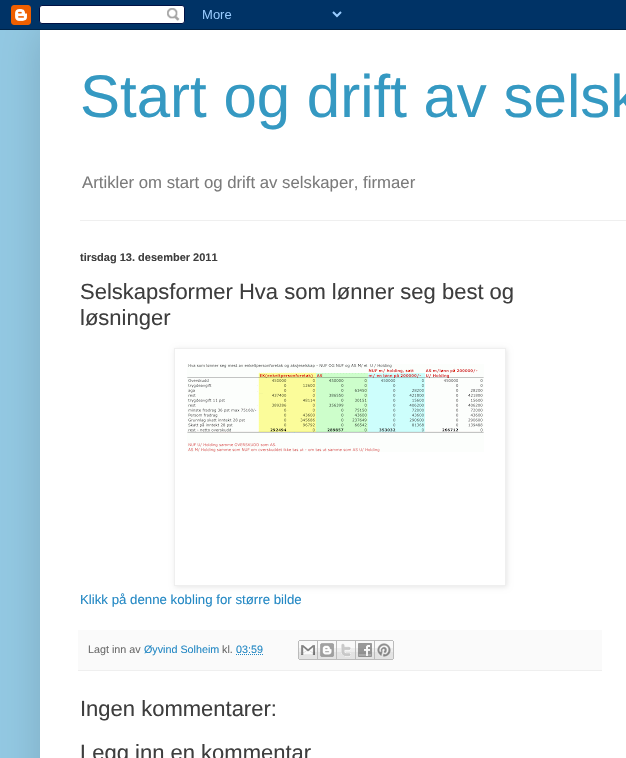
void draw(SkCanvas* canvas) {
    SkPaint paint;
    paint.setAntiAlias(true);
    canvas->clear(0xFF93C9E3);
    paint.setColor(0x26000000);
    paint.setMaskFilter(SkMaskFilter::MakeBlur(kNormal_SkBlurStyle, 20));
    canvas->drawRect(SkRect::MakeXYWH(40, 30, 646, 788), paint);
    paint.setMaskFilter(nullptr);
    canvas->drawImageRect(SkImages::DeferredFromEncodedData(SkData::MakeFromFileName("img1.png")), SkRect::MakeXYWH(0, 0, 626, 30), SkSamplingOptions());
    paint.setColor(0xFFFFFFFF);
    canvas->drawRect(SkRect::MakeXYWH(40, 30, 586, 728), paint);
    SkFont font1(fontMgr->matchFamilyStyle("Liberation Sans", SkFontStyle::Normal()), 60);
    font1.setSubpixel(true);
    paint.setColor(0xFF3599C2);
    canvas->drawString("Start og drift av selsk", 80, 117, font1, paint);
    SkFont font2(fontMgr->matchFamilyStyle("Liberation Sans", SkFontStyle::Normal()), 16.75f);
    font2.setSubpixel(true);
    paint.setColor(0xFF7B7B7B);
    canvas->drawString("Artikler om start og drift av selskaper, firmaer", 82, 188, font2, paint);
    paint.setColor(0xFFEFEFEF);
    canvas->drawRect(SkRect::MakeXYWH(80, 220, 546, 1), paint);
    SkFont font3(fontMgr->matchFamilyStyle("Liberation Sans", SkFontStyle::Bold()), 11);
    font3.setSubpixel(true);
    paint.setColor(0xFF3E3E3E);
    canvas->drawString("tirsdag 13. desember 2011", 80, 261, font3, paint);
    SkFont font4(fontMgr->matchFamilyStyle("Liberation Sans", SkFontStyle::Normal()), 22);
    font4.setSubpixel(true);
    canvas->drawString("Selskapsformer Hva som lønner seg best og", 80, 299, font4, paint);
    canvas->drawString("løsninger", 80, 325, font4, paint);
    canvas->save();
    canvas->clipPath(SkPathBuilder(SkPathFillType::kEvenOdd).moveTo(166, 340).lineTo(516, 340).lineTo(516, 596).lineTo(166, 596).close().moveTo(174, 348).lineTo(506, 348).lineTo(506, 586).lineTo(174, 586).close().detach(), true);
    paint.setColor(0x1A000000);
    paint.setMaskFilter(SkMaskFilter::MakeBlur(kNormal_SkBlurStyle, 2.5f));
    canvas->drawRect(SkRect::MakeXYWH(175, 349, 332, 238), paint);
    paint.setMaskFilter(nullptr);
    canvas->restore();
    paint.setStyle(SkPaint::kStroke_Style);
    paint.setStrokeWidth(1);
    paint.setColor(0xFFEFEFEF);
    canvas->drawRect(SkRect::MakeXYWH(174.5f, 348.5f, 331, 237), paint);
    canvas->drawImageRect(SkImages::DeferredFromEncodedData(SkData::MakeFromFileName("img2.png")), SkRect::MakeXYWH(187, 364, 297, 88), SkSamplingOptions());
    SkFont font5(fontMgr->matchFamilyStyle("Liberation Sans", SkFontStyle::Normal()), 13.25f);
    font5.setSubpixel(true);
    paint.setStyle(SkPaint::kFill_Style);
    paint.setColor(0xFF2388C4);
    canvas->drawString("Klikk på denne kobling for større bilde", 80, 604, font5, paint);
    paint.setColor(0xFFFAFAFA);
    canvas->drawRect(SkRect::MakeXYWH(78, 630, 524, 40), paint);
    paint.setColor(0xFFEFEFEF);
    canvas->drawRect(SkRect::MakeXYWH(78, 670, 524, 1), paint);
    SkFont font6(fontMgr->matchFamilyStyle("Liberation Sans", SkFontStyle::Normal()), 10.75f);
    font6.setSubpixel(true);
    paint.setColor(0xFF6C6C6C);
    canvas->drawString("Lagt inn av", 88, 653, font6, paint);
    paint.setColor(0xFF2388C4);
    canvas->drawString("Øyvind Solheim", 144, 653, font6, paint);
    paint.setColor(0xFF6C6C6C);
    canvas->drawString("kl.", 222, 653, font6, paint);
    paint.setColor(0xFF2388C4);
    canvas->drawString("03:59", 236, 653, font6, paint);
    paint.setStyle(SkPaint::kStroke_Style);
    paint.setPathEffect(SkDashPathEffect::Make({{1, 1}}, 0));
    canvas->drawPath(SkPathBuilder().moveTo(236, 654.5f).lineTo(263.5f, 654.5f).detach(), paint);
    paint.setPathEffect(nullptr);
    canvas->drawImageRect(SkImages::DeferredFromEncodedData(SkData::MakeFromFileName("img3.png")), SkRect::MakeXYWH(298, 640, 20, 20), SkSamplingOptions());
    canvas->drawImageRect(SkImages::DeferredFromEncodedData(SkData::MakeFromFileName("img4.png")), SkRect::MakeXYWH(318, 640, 19, 20), SkSamplingOptions());
    canvas->drawImageRect(SkImages::DeferredFromEncodedData(SkData::MakeFromFileName("img5.png")), SkRect::MakeXYWH(337, 640, 19, 20), SkSamplingOptions());
    canvas->drawImageRect(SkImages::DeferredFromEncodedData(SkData::MakeFromFileName("img6.png")), SkRect::MakeXYWH(356, 640, 19, 20), SkSamplingOptions());
    canvas->drawImageRect(SkImages::DeferredFromEncodedData(SkData::MakeFromFileName("img7.png")), SkRect::MakeXYWH(375, 640, 19, 20), SkSamplingOptions());
    paint.setStyle(SkPaint::kFill_Style);
    paint.setColor(0xFF3E3E3E);
    canvas->drawString("Ingen kommentarer:", 80, 716, font4, paint);
    canvas->drawString("Legg inn en kommentar", 80, 760, font4, paint);
}
